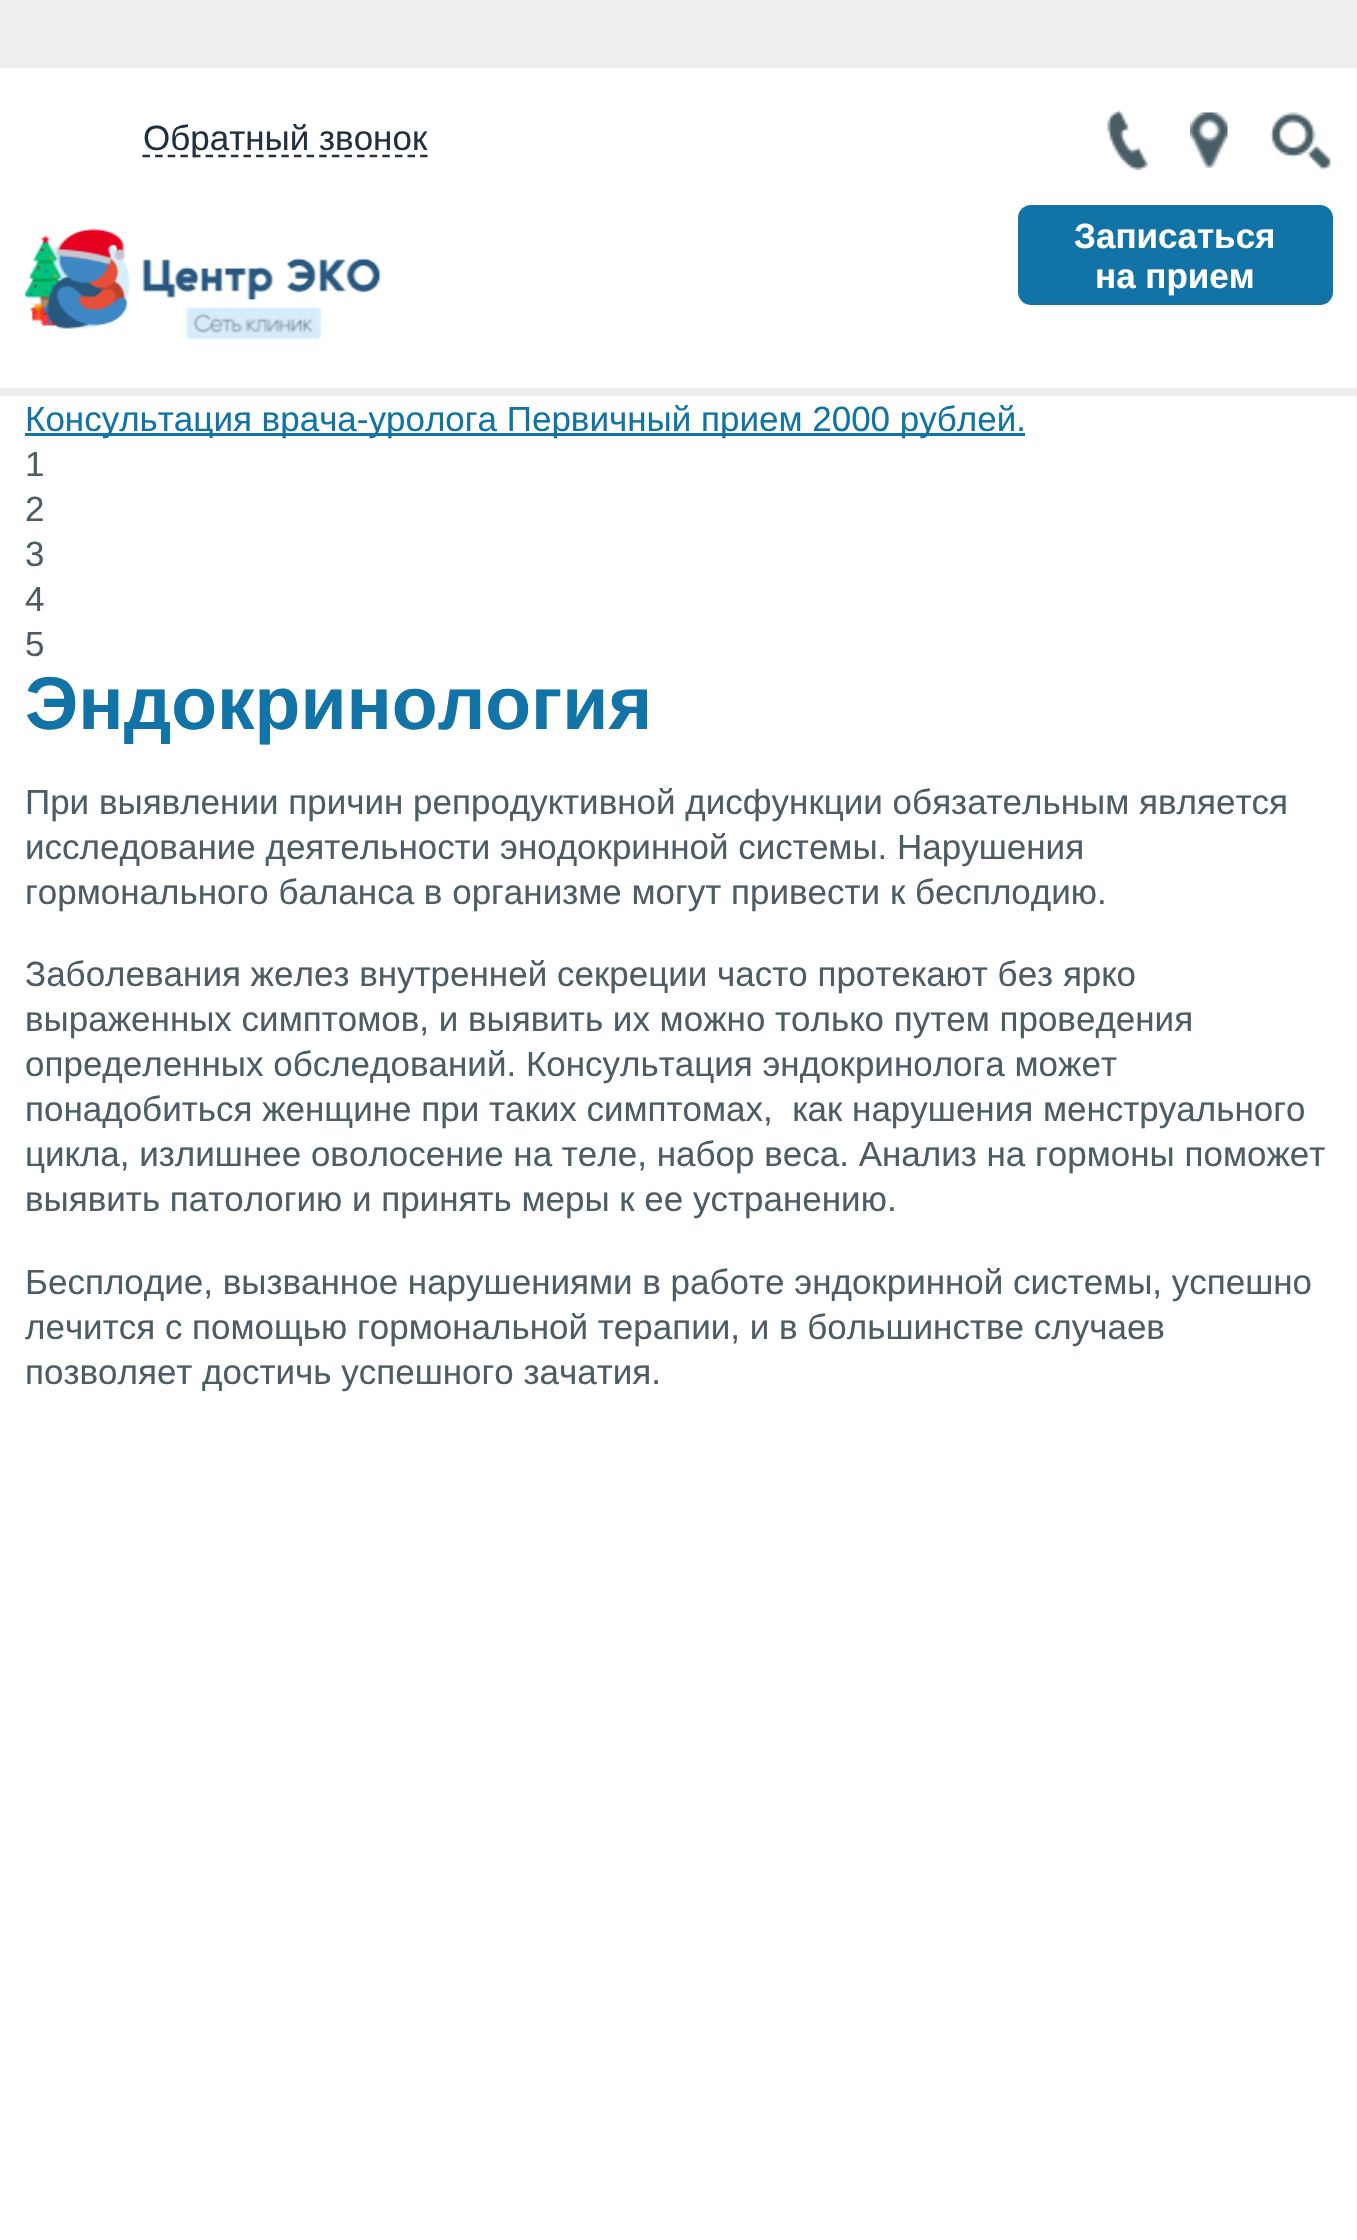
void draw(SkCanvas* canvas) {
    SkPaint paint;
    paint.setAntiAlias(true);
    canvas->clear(0xFFFFFFFF);
    paint.setColor(0xFFEEEEEE);
    canvas->drawRect(SkRect::MakeXYWH(0, 388, 1357, 8), paint);
    canvas->drawRect(SkRect::MakeXYWH(0, 0, 1357, 68), paint);
    paint.setStyle(SkPaint::kStroke_Style);
    paint.setStrokeWidth(2.5f);
    paint.setColor(0xFF223141);
    paint.setPathEffect(SkDashPathEffect::Make({{7.5f, 5.12f}}, 0));
    canvas->drawPath(SkPathBuilder().moveTo(142.5f, 156).lineTo(427.5f, 156).detach(), paint);
    paint.setPathEffect(nullptr);
    SkFont font1(fontMgr->matchFamilyStyle("Liberation Sans", SkFontStyle::Normal()), 35);
    font1.setSubpixel(true);
    paint.setStyle(SkPaint::kFill_Style);
    canvas->drawString("Обратный звонок", 143, 150, font1, paint);
    canvas->drawImageRect(SkImages::DeferredFromEncodedData(SkData::MakeFromFileName("img1.png")), SkRect::MakeXYWH(25, 228, 356, 113), SkSamplingOptions());
    canvas->drawImageRect(SkImages::DeferredFromEncodedData(SkData::MakeFromFileName("img2.png")), SkRect::MakeXYWH(1107, 110, 41, 60), SkSamplingOptions());
    canvas->drawImageRect(SkImages::DeferredFromEncodedData(SkData::MakeFromFileName("img3.png")), SkRect::MakeXYWH(1190, 112, 38, 56), SkSamplingOptions());
    canvas->drawImageRect(SkImages::DeferredFromEncodedData(SkData::MakeFromFileName("img4.png")), SkRect::MakeXYWH(1270, 112, 61, 58), SkSamplingOptions());
    paint.setColor(0xFF1173A6);
    canvas->drawRoundRect(SkRect::MakeXYWH(1018, 205, 315, 100), 13, 13, paint);
    SkFont font2(fontMgr->matchFamilyStyle("Liberation Sans", SkFontStyle::Bold()), 35);
    font2.setSubpixel(true);
    paint.setColor(0xFFFFFFFF);
    canvas->drawString("Записаться", 1074, 248, font2, paint);
    canvas->drawString("на прием", 1095, 288, font2, paint);
    paint.setColor(0xFF1173A6);
    canvas->drawRect(SkRect::MakeXYWH(25, 433, 1000, 3), paint);
    canvas->drawString("Консультация врача-уролога Первичный прием 2000 рублей.", 25, 431, font1, paint);
    paint.setColor(0xFF4D5D65);
    canvas->drawString("1", 25, 476, font1, paint);
    canvas->drawString("2", 25, 521, font1, paint);
    canvas->drawString("3", 25, 566, font1, paint);
    canvas->drawString("4", 25, 611, font1, paint);
    canvas->drawString("5", 25, 656, font1, paint);
    SkFont font3(fontMgr->matchFamilyStyle("Liberation Sans", SkFontStyle::Bold()), 75);
    font3.setSubpixel(true);
    paint.setColor(0xFF1173A6);
    canvas->drawString("Эндокринология", 25, 729, font3, paint);
    paint.setColor(0xFF4D5D65);
    canvas->drawString("При выявлении причин репродуктивной дисфункции обязательным является", 25, 814, font1, paint);
    canvas->drawString("исследование деятельности энодокринной системы. Нарушения", 25, 859, font1, paint);
    canvas->drawString("гормонального баланса в организме могут привести к бесплодию.", 25, 904, font1, paint);
    canvas->drawString("Заболевания желез внутренней секреции часто протекают без ярко", 25, 986, font1, paint);
    canvas->drawString("выраженных симптомов, и выявить их можно только путем проведения", 25, 1031, font1, paint);
    canvas->drawString("определенных обследований. Консультация эндокринолога может", 25, 1076, font1, paint);
    canvas->drawString("понадобиться женщине при таких симптомах,  как нарушения менструального", 25, 1121, font1, paint);
    canvas->drawString("цикла, излишнее оволосение на теле, набор веса. Анализ на гормоны поможет", 25, 1166, font1, paint);
    canvas->drawString("выявить патологию и принять меры к ее устранению.", 25, 1211, font1, paint);
    canvas->drawString("Бесплодие, вызванное нарушениями в работе эндокринной системы, успешно", 25, 1294, font1, paint);
    canvas->drawString("лечится с помощью гормональной терапии, и в большинстве случаев", 25, 1339, font1, paint);
    canvas->drawString("позволяет достичь успешного зачатия.", 25, 1384, font1, paint);
}
